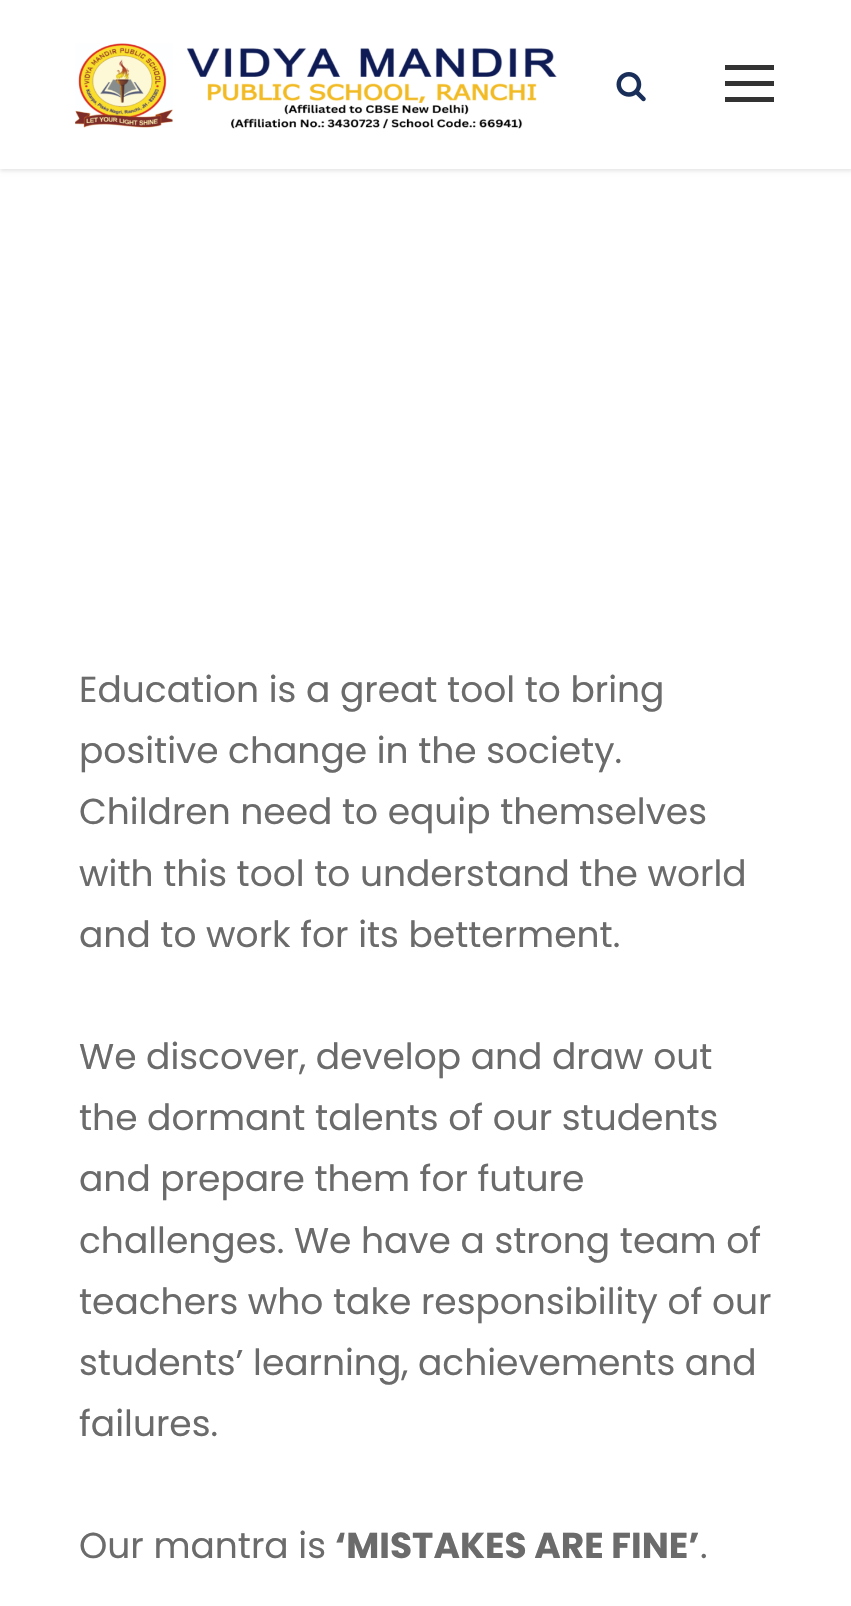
void draw(SkCanvas* canvas) {
    SkPaint paint;
    paint.setAntiAlias(true);
    canvas->clear(0xFFFFFFFF);
    paint.setColor(0x1A000000);
    paint.setMaskFilter(SkMaskFilter::MakeBlur(kNormal_SkBlurStyle, 2));
    canvas->drawRect(SkRect::MakeXYWH(0, 2, 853, 169), paint);
    paint.setMaskFilter(nullptr);
    paint.setColor(0xFFFFFFFF);
    canvas->drawRect(SkRect::MakeXYWH(0, 0, 851, 169), paint);
    canvas->drawImageRect(SkImages::DeferredFromEncodedData(SkData::MakeFromFileName("img1.png")), SkRect::MakeXYWH(75, 43, 482, 86), SkSamplingOptions());
    canvas->drawImageRect(SkImages::DeferredFromEncodedData(SkData::MakeFromFileName("img2.png")), SkRect::MakeXYWH(616, 72, 30, 30), SkSamplingOptions());
    paint.setColor(0xFF333333);
    canvas->drawRect(SkRect::MakeXYWH(725, 65, 49, 5), paint);
    canvas->drawRect(SkRect::MakeXYWH(725, 81, 49, 5), paint);
    canvas->drawRect(SkRect::MakeXYWH(725, 97, 49, 5), paint);
    SkFont font1(fontMgr->matchFamilyStyle("Poppins", SkFontStyle::Normal()), 36);
    font1.setSubpixel(true);
    paint.setColor(0xFF6B6B6B);
    canvas->drawString("Education is a great tool to bring", 79, 702, font1, paint);
    canvas->drawString("positive change in the society.", 79, 763, font1, paint);
    canvas->drawString("Children need to equip themselves", 79, 824, font1, paint);
    canvas->drawString("with this tool to understand the world", 79, 886, font1, paint);
    canvas->drawString("and to work for its betterment.", 79, 947, font1, paint);
    canvas->drawString("We discover, develop and draw out", 79, 1069, font1, paint);
    canvas->drawString("the dormant talents of our students", 79, 1130, font1, paint);
    canvas->drawString("and prepare them for future", 79, 1191, font1, paint);
    canvas->drawString("challenges. We have a strong team of", 79, 1253, font1, paint);
    canvas->drawString("teachers who take responsibility of our", 79, 1314, font1, paint);
    canvas->drawString("students’ learning, achievements and", 79, 1375, font1, paint);
    canvas->drawString("failures.", 79, 1436, font1, paint);
    canvas->drawString("Our mantra is", 79, 1558, font1, paint);
    SkFont font2(fontMgr->matchFamilyStyle("Poppins", SkFontStyle::Bold()), 36);
    font2.setSubpixel(true);
    canvas->drawString("‘MISTAKES ARE FINE’", 335, 1558, font2, paint);
    canvas->drawString(".", 700, 1558, font1, paint);
}
